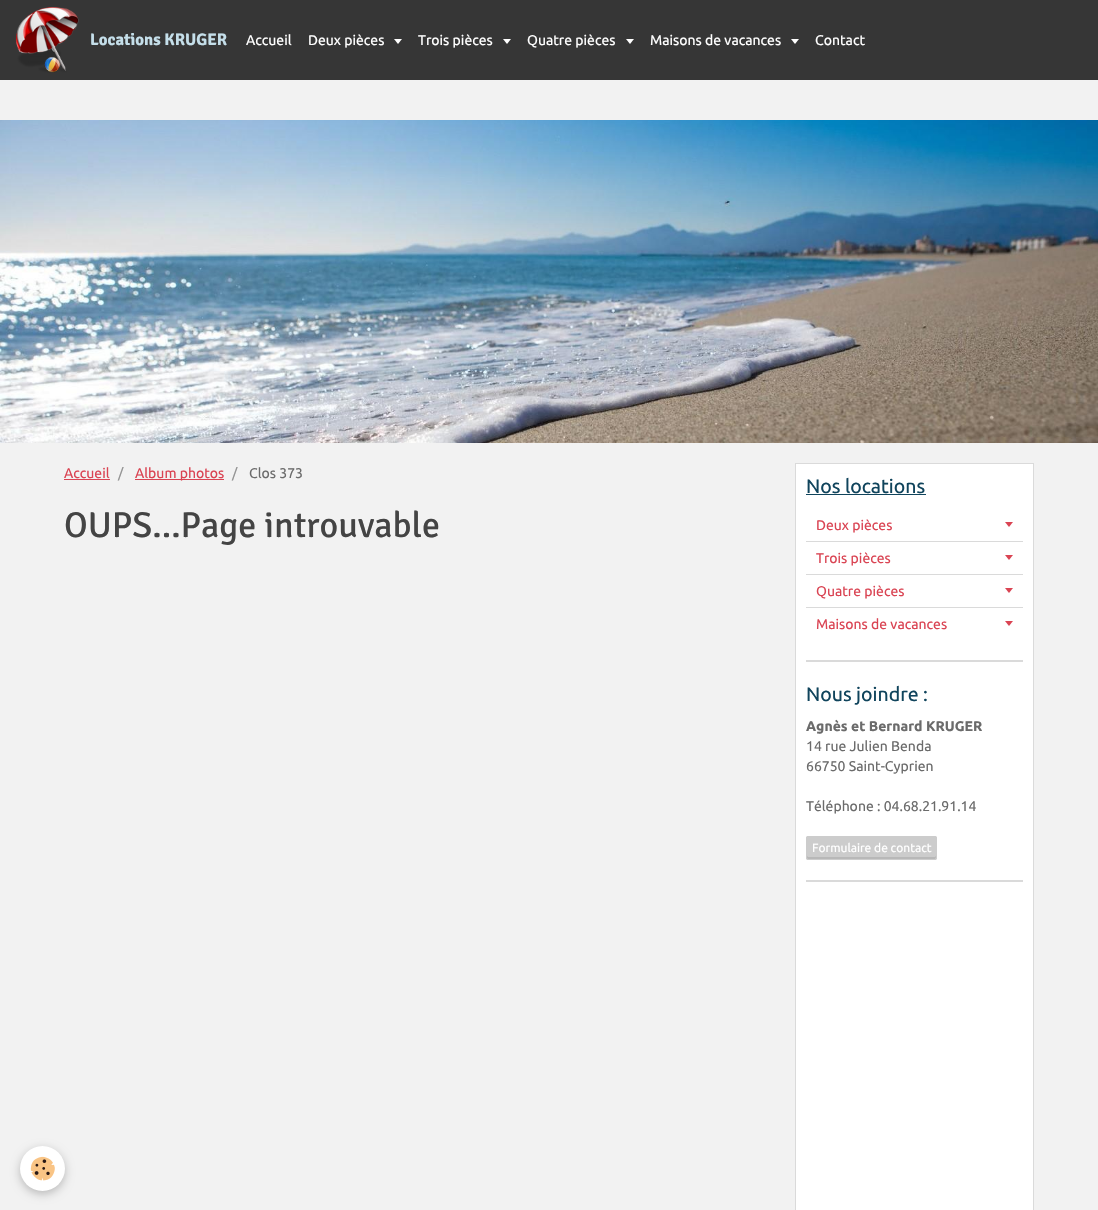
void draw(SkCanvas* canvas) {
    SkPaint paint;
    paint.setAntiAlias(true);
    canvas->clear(0xFFF2F2F2);
    paint.setColor(0xFF363636);
    canvas->drawRect(SkRect::MakeXYWH(0, 0, 1098, 80), paint);
    canvas->drawImageRect(SkImages::DeferredFromEncodedData(SkData::MakeFromFileName("img1.png")), SkRect::MakeXYWH(15, 7, 64, 66), SkSamplingOptions());
    SkFont font1(fontMgr->matchFamilyStyle("Signika", SkFontStyle::Bold()), 16.75f);
    font1.setSubpixel(true);
    paint.setColor(0xFFC5DFEA);
    canvas->drawString("Locations KRUGER", 90, 45, font1, paint);
    SkFont font2(fontMgr->matchFamilyStyle("Ubuntu", SkFontStyle::Normal()), 14);
    font2.setSubpixel(true);
    paint.setColor(0xFFFFFFFF);
    canvas->drawString("Accueil", 246, 45, font2, paint);
    canvas->drawString("Deux pièces", 308, 45, font2, paint);
    canvas->drawPath(SkPathBuilder().moveTo(394, 39).lineTo(402, 39).lineTo(398, 44).close().detach(), paint);
    canvas->drawString("Trois pièces", 418, 45, font2, paint);
    canvas->drawPath(SkPathBuilder().moveTo(503, 39).lineTo(511, 39).lineTo(507, 44).close().detach(), paint);
    canvas->drawString("Quatre pièces", 527, 45, font2, paint);
    canvas->drawPath(SkPathBuilder().moveTo(626, 39).lineTo(634, 39).lineTo(630, 44).close().detach(), paint);
    canvas->drawString("Maisons de vacances", 650, 45, font2, paint);
    canvas->drawPath(SkPathBuilder().moveTo(791, 39).lineTo(799, 39).lineTo(795, 44).close().detach(), paint);
    canvas->drawString("Contact", 815, 45, font2, paint);
    canvas->drawImageRect(SkImages::DeferredFromEncodedData(SkData::MakeFromFileName("img2.png")), SkRect::MakeXYWH(0, 120, 1098, 323), SkSamplingOptions());
    paint.setColor(0xFFDA4453);
    canvas->drawString("Accueil", 64, 478, font2, paint);
    canvas->drawRect(SkRect::MakeXYWH(64, 479, 46, 1), paint);
    paint.setColor(0xFF949494);
    canvas->drawString("/", 118, 478, font2, paint);
    paint.setColor(0xFFDA4453);
    canvas->drawRect(SkRect::MakeXYWH(135, 479, 89, 1), paint);
    canvas->drawString("Album photos", 135, 478, font2, paint);
    paint.setColor(0xFF949494);
    canvas->drawString("/", 232, 478, font2, paint);
    paint.setColor(0xFF6B6B6B);
    canvas->drawString("Clos 373", 249, 478, font2, paint);
    SkFont font3(fontMgr->matchFamilyStyle("Signika", SkFontStyle::Normal()), 36);
    font3.setSubpixel(true);
    paint.setColor(0xFF444444);
    canvas->drawString("OUPS...Page introuvable", 64, 537, font3, paint);
    paint.setColor(0xFFFFFFFF);
    canvas->drawRect(SkRect::MakeXYWH(795.5f, 463.5f, 238, 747), paint);
    paint.setStyle(SkPaint::kStroke_Style);
    paint.setStrokeWidth(1);
    paint.setColor(0xFFDADADA);
    canvas->drawRect(SkRect::MakeXYWH(795.5f, 463.5f, 238, 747), paint);
    paint.setStyle(SkPaint::kFill_Style);
    canvas->drawRect(SkRect::MakeXYWH(806, 660, 217, 2), paint);
    SkFont font4(fontMgr->matchFamilyStyle("Ubuntu", SkFontStyle::Normal()), 19.5f);
    font4.setSubpixel(true);
    paint.setColor(0xFF10445C);
    canvas->drawString("Nos locations", 806, 493, font4, paint);
    canvas->drawRect(SkRect::MakeXYWH(806, 494, 120, 1), paint);
    paint.setColor(0xFFDADADA);
    canvas->drawRect(SkRect::MakeXYWH(806, 541, 217, 1), paint);
    paint.setColor(0xFFDA4453);
    canvas->drawString("Deux pièces", 816, 530, font2, paint);
    canvas->drawPath(SkPathBuilder().moveTo(1005, 522).lineTo(1013, 522).lineTo(1009, 527).close().detach(), paint);
    paint.setColor(0xFFDADADA);
    canvas->drawRect(SkRect::MakeXYWH(806, 574, 217, 1), paint);
    paint.setColor(0xFFDA4453);
    canvas->drawString("Trois pièces", 816, 563, font2, paint);
    canvas->drawPath(SkPathBuilder().moveTo(1005, 555).lineTo(1013, 555).lineTo(1009, 560).close().detach(), paint);
    paint.setColor(0xFFDADADA);
    canvas->drawRect(SkRect::MakeXYWH(806, 607, 217, 1), paint);
    paint.setColor(0xFFDA4453);
    canvas->drawString("Quatre pièces", 816, 596, font2, paint);
    canvas->drawPath(SkPathBuilder().moveTo(1005, 588).lineTo(1013, 588).lineTo(1009, 593).close().detach(), paint);
    canvas->drawString("Maisons de vacances", 816, 629, font2, paint);
    canvas->drawPath(SkPathBuilder().moveTo(1005, 621).lineTo(1013, 621).lineTo(1009, 626).close().detach(), paint);
    paint.setColor(0xFFDADADA);
    canvas->drawRect(SkRect::MakeXYWH(806, 880, 217, 2), paint);
    paint.setColor(0xFF10445C);
    canvas->drawString("Nous joindre :", 806, 701, font4, paint);
    SkFont font5(fontMgr->matchFamilyStyle("Ubuntu", SkFontStyle::Bold()), 14);
    font5.setSubpixel(true);
    paint.setColor(0xFF6B6B6B);
    canvas->drawString("Agnès et Bernard KRUGER", 806, 731, font5, paint);
    canvas->drawString("14 rue Julien Benda", 806, 751, font2, paint);
    canvas->drawString("66750 Saint-Cyprien", 806, 771, font2, paint);
    canvas->drawString("Téléphone : 04.68.21.91.14", 806, 811, font2, paint);
    paint.setColor(0xFFCCCCCC);
    canvas->drawRoundRect(SkRect::MakeXYWH(806, 836, 131, 24), 2, 2, paint);
    paint.setColor(0xFFB8B8B8);
    canvas->drawPath(SkPathBuilder().moveTo(807, 856).cubicTo(807, 857, 807, 859, 808, 859).lineTo(935, 859).cubicTo(936, 858, 936, 857, 936, 856).lineTo(935, 857).lineTo(808, 857).close().detach(), paint);
    paint.setStyle(SkPaint::kStroke_Style);
    paint.setColor(0xFFCCCCCC);
    canvas->drawRoundRect(SkRect::MakeXYWH(806.5f, 836.5f, 130, 23), 1.5f, 1.5f, paint);
    SkFont font6(fontMgr->matchFamilyStyle("Ubuntu", SkFontStyle::Normal()), 12);
    font6.setSubpixel(true);
    paint.setStyle(SkPaint::kFill_Style);
    paint.setColor(0xFFFFFFFF);
    canvas->drawString("Formulaire de contact", 812, 852, font6, paint);
    paint.setColor(0x3D000000);
    paint.setMaskFilter(SkMaskFilter::MakeBlur(kNormal_SkBlurStyle, 5));
    canvas->drawRoundRect(SkRect::MakeXYWH(20, 1149, 45, 45), 22.5f, 22.5f, paint);
    paint.setMaskFilter(nullptr);
    paint.setColor(0xFFFFFFFF);
    canvas->drawCircle(42.5f, 1168.5f, 22.5f, paint);
    canvas->drawImageRect(SkImages::DeferredFromEncodedData(SkData::MakeFromFileName("img3.png")), SkRect::MakeXYWH(30, 1156, 25, 25), SkSamplingOptions());
}
